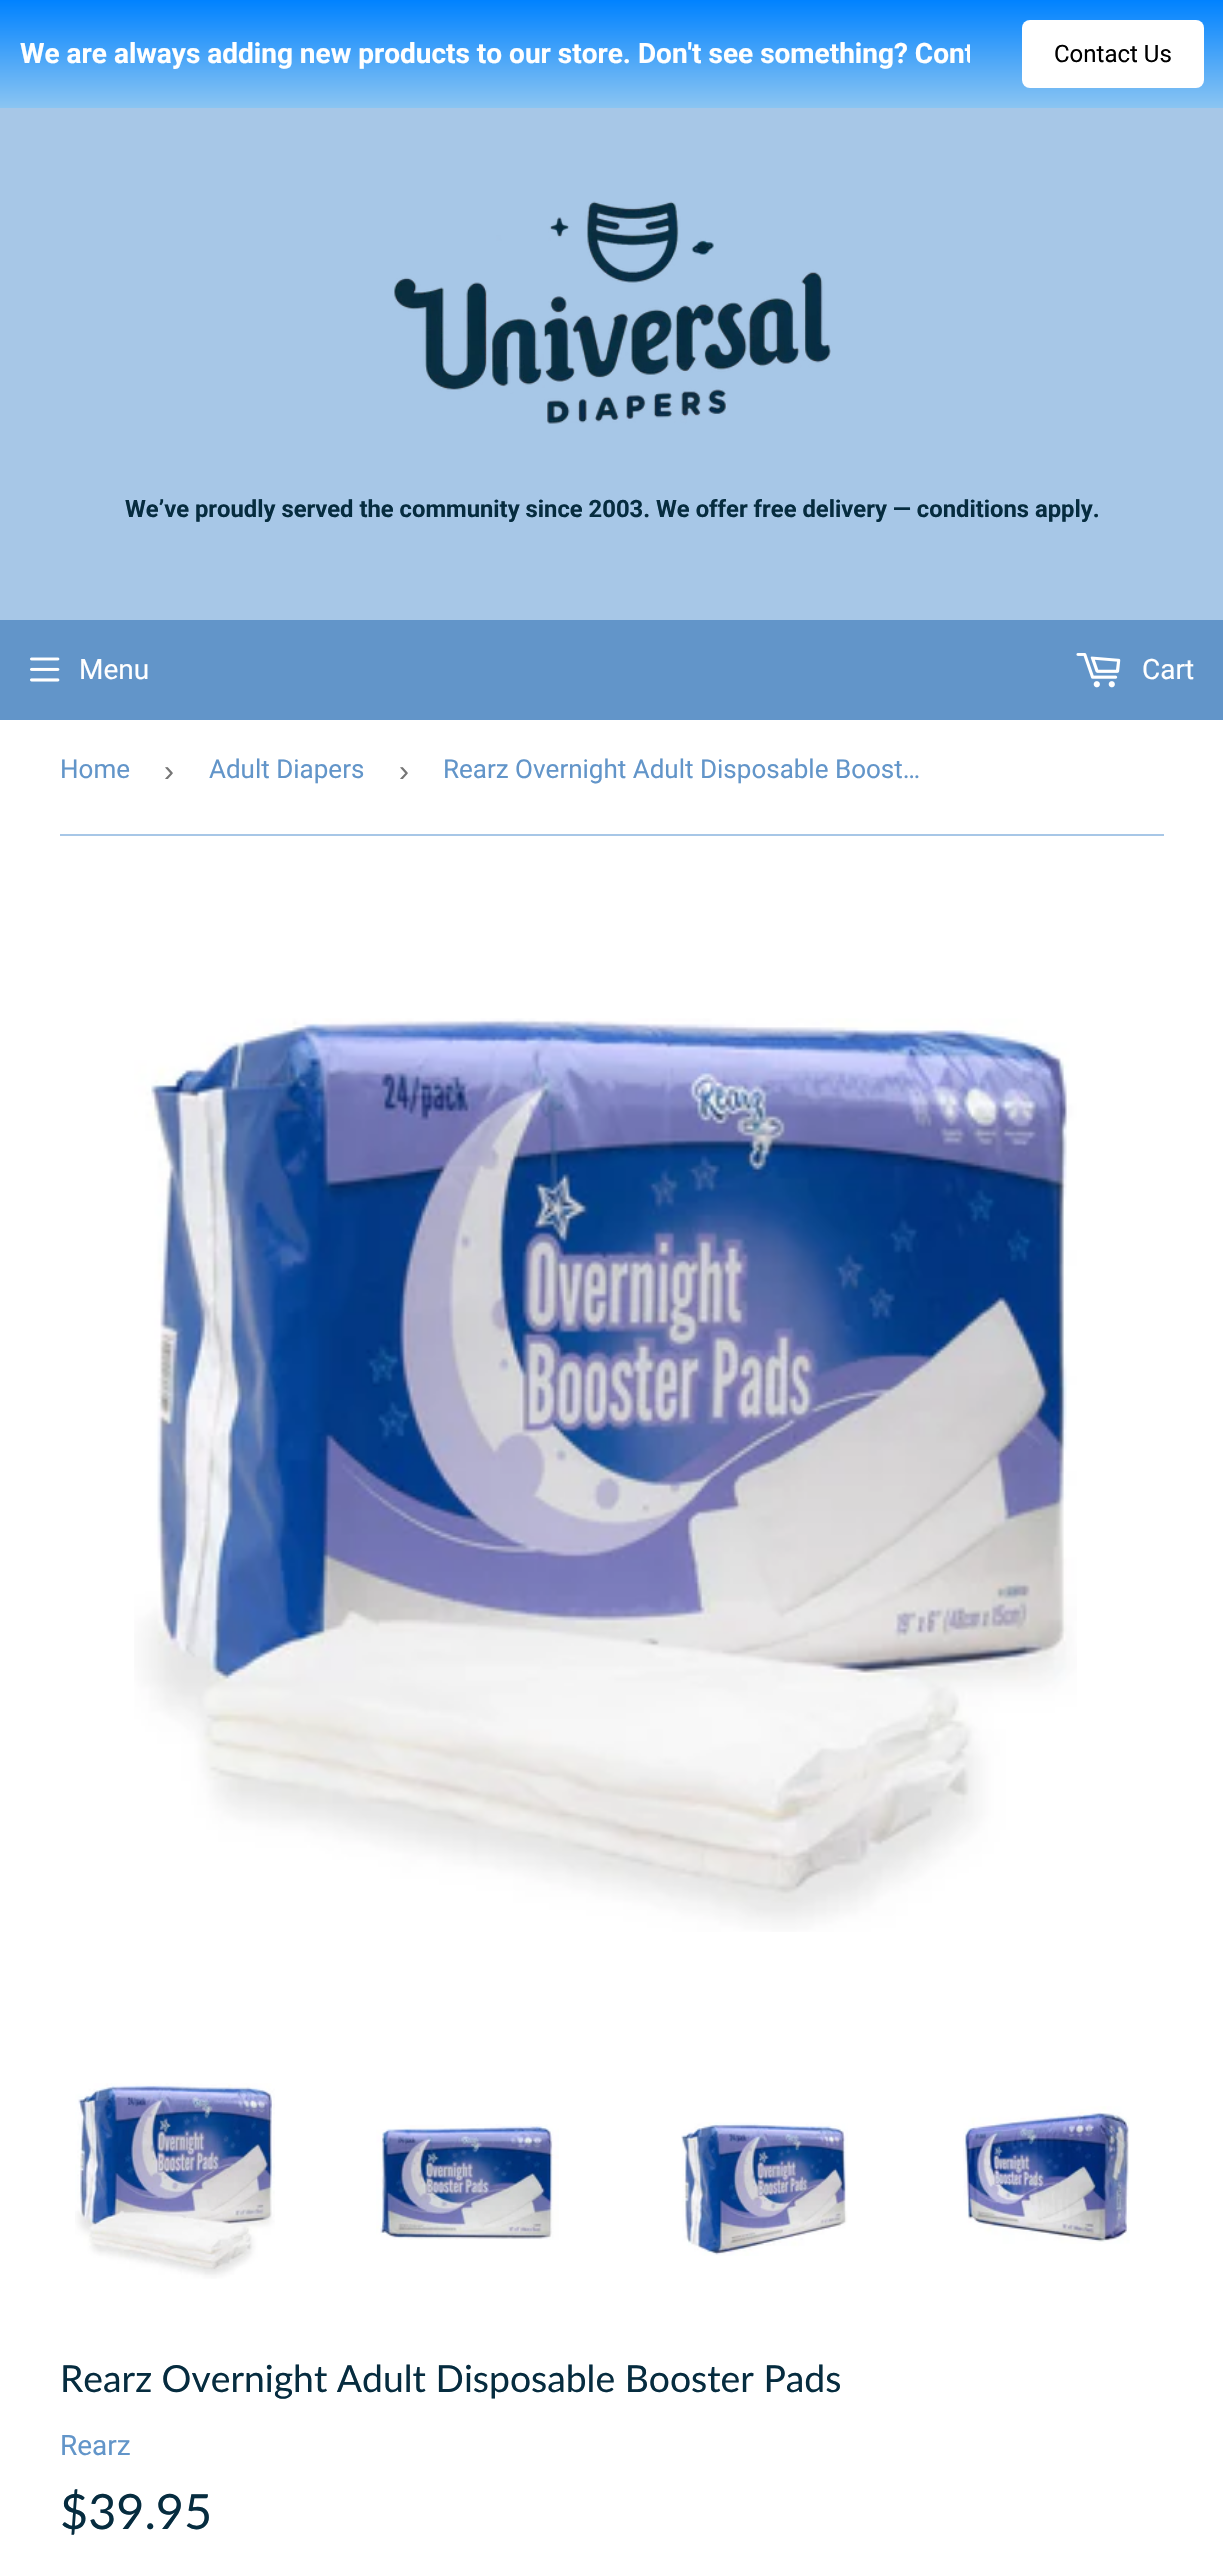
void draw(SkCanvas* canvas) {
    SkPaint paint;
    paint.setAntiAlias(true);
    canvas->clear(0xFFFFFFFF);
    {
        const SkColor colors[] = {0xFF8BC5F2, 0xFF0082FF};
        const float stops[] = {0, 1};
        const SkPoint ends[] = {{612, 108}, {612, 0}};
        paint.setShader(SkGradientShader::MakeLinear(ends, colors, stops, 2, SkTileMode::kClamp));
        paint.setAlpha(255);
    }
    canvas->drawRect(SkRect::MakeXYWH(0, 0, 1223, 108), paint);
    canvas->save();
    canvas->clipRect(SkRect::MakeXYWH(20, 38, 950, 32));
    SkFont font1(fontMgr->matchFamilyStyle("Roboto", SkFontStyle::Bold()), 28);
    font1.setSubpixel(true);
    paint.setShader(nullptr);
    paint.setColor(0xFFFFFFFF);
    canvas->drawString("We are always adding new products to our store. Don't see something? Cont", 20, 63, font1, paint);
    canvas->restore();
    canvas->drawRoundRect(SkRect::MakeXYWH(1022, 20, 182, 68), 8, 8, paint);
    SkFont font2(fontMgr->matchFamilyStyle("Roboto", SkFontStyle::Normal()), 24);
    font2.setSubpixel(true);
    paint.setColor(0xFF000000);
    canvas->drawString("Contact Us", 1054, 62, font2, paint);
    paint.setColor(0xFFA7C7E7);
    canvas->drawRect(SkRect::MakeXYWH(0, 108, 1223, 512), paint);
    canvas->drawImageRect(SkImages::DeferredFromEncodedData(SkData::MakeFromFileName("img1.png")), SkRect::MakeXYWH(394, 201, 437, 223), SkSamplingOptions());
    SkFont font3(fontMgr->matchFamilyStyle("Roboto", SkFontStyle::Bold()), 23.8f);
    font3.setSubpixel(true);
    paint.setColor(0xFF062C3F);
    canvas->drawString("We’ve proudly served the community since 2003. We offer free delivery — conditions apply.", 125, 517, font3, paint);
    paint.setColor(0xFF6295C9);
    canvas->drawRect(SkRect::MakeXYWH(0, 620, 1223, 100), paint);
    canvas->drawImageRect(SkImages::DeferredFromEncodedData(SkData::MakeFromFileName("img2.png")), SkRect::MakeXYWH(30, 657, 30, 25), SkSamplingOptions());
    SkFont font4(fontMgr->matchFamilyStyle("Roboto", SkFontStyle::Normal()), 28);
    font4.setSubpixel(true);
    paint.setColor(0xFFFFFFFF);
    canvas->drawString("Menu", 79, 679, font4, paint);
    canvas->drawImageRect(SkImages::DeferredFromEncodedData(SkData::MakeFromFileName("img3.png")), SkRect::MakeXYWH(1076, 653, 45, 35), SkSamplingOptions());
    canvas->drawString("Cart", 1142, 679, font4, paint);
    paint.setColor(0xFFA7C7E7);
    canvas->drawRect(SkRect::MakeXYWH(60, 834, 1104, 2), paint);
    SkFont font5(fontMgr->matchFamilyStyle("Roboto", SkFontStyle::Normal()), 26);
    font5.setSubpixel(true);
    paint.setColor(0xFF6295C9);
    canvas->drawString("Home", 60, 778, font5, paint);
    SkFont font6(fontMgr->matchFamilyStyle("Liberation Sans", SkFontStyle::Normal()), 30);
    font6.setSubpixel(true);
    paint.setColor(0xFF767676);
    canvas->drawString("›", 164, 781, font6, paint);
    paint.setColor(0xFF6295C9);
    canvas->drawString("Adult Diapers", 209, 778, font5, paint);
    paint.setColor(0xFF767676);
    canvas->drawString("›", 399, 781, font6, paint);
    paint.setColor(0xFF6295C9);
    canvas->drawString("Rearz Overnight Adult Disposable Boost…", 443, 778, font5, paint);
    canvas->drawImageRect(SkImages::DeferredFromEncodedData(SkData::MakeFromFileName("img4.png")), SkRect::MakeXYWH(134, 1018, 943, 914), SkSamplingOptions());
    canvas->drawImageRect(SkImages::DeferredFromEncodedData(SkData::MakeFromFileName("img5.png")), SkRect::MakeXYWH(75, 2083, 200, 196), SkSamplingOptions());
    canvas->drawImageRect(SkImages::DeferredFromEncodedData(SkData::MakeFromFileName("img6.png")), SkRect::MakeXYWH(376, 2124, 183, 116), SkSamplingOptions());
    canvas->drawImageRect(SkImages::DeferredFromEncodedData(SkData::MakeFromFileName("img7.png")), SkRect::MakeXYWH(681, 2122, 167, 134), SkSamplingOptions());
    canvas->drawImageRect(SkImages::DeferredFromEncodedData(SkData::MakeFromFileName("img8.png")), SkRect::MakeXYWH(963, 2106, 167, 138), SkSamplingOptions());
    SkFont font7(fontMgr->matchFamilyStyle("Lato", SkFontStyle::Normal()), 37.3f);
    font7.setSubpixel(true);
    paint.setColor(0xFF062C3F);
    canvas->drawString("Rearz Overnight Adult Disposable Booster Pads", 60, 2392, font7, paint);
    paint.setColor(0xFF6295C9);
    canvas->drawString("Rearz", 60, 2455, font4, paint);
    SkFont font8(fontMgr->matchFamilyStyle("Lato", SkFontStyle::Normal()), 48.5f);
    font8.setSubpixel(true);
    paint.setColor(0xFF062C3F);
    canvas->drawString("$39.95", 60, 2529, font8, paint);
}
